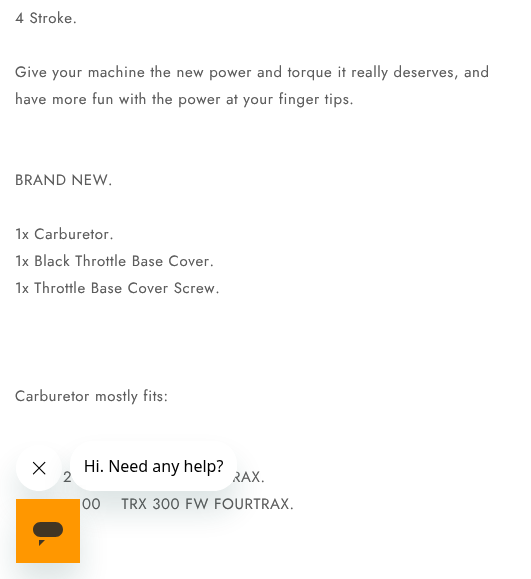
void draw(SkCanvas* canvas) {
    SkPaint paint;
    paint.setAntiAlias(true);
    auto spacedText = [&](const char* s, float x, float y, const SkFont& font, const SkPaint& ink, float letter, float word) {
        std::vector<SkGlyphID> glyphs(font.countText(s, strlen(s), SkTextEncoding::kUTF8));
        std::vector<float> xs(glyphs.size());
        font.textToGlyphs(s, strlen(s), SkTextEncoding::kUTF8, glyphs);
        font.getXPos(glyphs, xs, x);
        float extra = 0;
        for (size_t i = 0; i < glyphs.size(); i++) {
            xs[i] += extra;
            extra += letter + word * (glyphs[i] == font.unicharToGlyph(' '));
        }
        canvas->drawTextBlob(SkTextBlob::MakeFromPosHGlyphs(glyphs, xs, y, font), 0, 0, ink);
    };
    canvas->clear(0xFFFFFFFF);
    SkFont font1(fontMgr->matchFamilyStyle("Jost", SkFontStyle::Normal()), 15);
    font1.setSubpixel(true);
    paint.setColor(0xFF5C5C5C);
    spacedText("4 Stroke.", 15, 23, font1, paint, 0.6f, 0);
    spacedText("Give your machine the new power and torque it really deserves, and", 15, 77, font1, paint, 0.6f, 0);
    spacedText("have more fun with the power at your finger tips.", 15, 104, font1, paint, 0.6f, 0);
    spacedText("BRAND NEW.", 15, 185, font1, paint, 0.6f, 0);
    spacedText("1x Carburetor.", 15, 239, font1, paint, 0.6f, 0);
    spacedText("1x Black Throttle Base Cover.", 15, 266, font1, paint, 0.6f, 0);
    spacedText("1x Throttle Base Cover Screw.", 15, 293, font1, paint, 0.6f, 0);
    spacedText("Carburetor mostly fits:", 15, 401, font1, paint, 0.6f, 0);
    spacedText("2", 63, 482, font1, paint, 0.6f, 0);
    spacedText("RAX.", 232, 482, font1, paint, 0.6f, 0);
    spacedText("00    TRX 300 FW FOURTRAX.", 82, 509, font1, paint, 0.6f, 0);
    canvas->save();
    canvas->clipPath(SkPathBuilder(SkPathFillType::kEvenOdd).moveTo(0, 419).lineTo(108, 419).lineTo(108, 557).lineTo(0, 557).close().moveTo(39, 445).cubicTo(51.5f, 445, 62, 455.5f, 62, 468).cubicTo(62, 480.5f, 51.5f, 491, 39, 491).cubicTo(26.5f, 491, 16, 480.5f, 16, 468).cubicTo(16, 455.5f, 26.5f, 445, 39, 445).close().detach(), true);
    paint.setColor(0x2617494D);
    paint.setMaskFilter(SkMaskFilter::MakeBlur(kNormal_SkBlurStyle, 15));
    canvas->drawRoundRect(SkRect::MakeXYWH(16, 465, 46, 46), 23, 23, paint);
    paint.setMaskFilter(nullptr);
    canvas->restore();
    canvas->drawImageRect(SkImages::DeferredFromEncodedData(SkData::MakeFromFileName("img2.png")), SkRect::MakeXYWH(16, 448, 42, 35), SkSamplingOptions());
    canvas->save();
    canvas->clipPath(SkPathBuilder(SkPathFillType::kEvenOdd).moveTo(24, 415).lineTo(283, 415).lineTo(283, 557).lineTo(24, 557).close().moveTo(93, 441).lineTo(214, 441).cubicTo(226.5f, 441, 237, 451.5f, 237, 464).lineTo(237, 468).cubicTo(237, 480.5f, 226.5f, 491, 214, 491).lineTo(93, 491).cubicTo(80.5f, 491, 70, 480.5f, 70, 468).lineTo(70, 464).cubicTo(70, 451.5f, 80.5f, 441, 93, 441).close().detach(), true);
    paint.setMaskFilter(SkMaskFilter::MakeBlur(kNormal_SkBlurStyle, 15));
    canvas->drawRoundRect(SkRect::MakeXYWH(70, 461, 167, 50), 23, 23, paint);
    paint.setMaskFilter(nullptr);
    canvas->restore();
    canvas->drawImageRect(SkImages::DeferredFromEncodedData(SkData::MakeFromFileName("img1.png")), SkRect::MakeXYWH(70, 443, 167, 42), SkSamplingOptions());
    paint.setMaskFilter(SkMaskFilter::MakeBlur(kNormal_SkBlurStyle, 15));
    canvas->drawRect(SkRect::MakeXYWH(16, 519, 64, 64), paint);
    paint.setMaskFilter(nullptr);
    canvas->drawImageRect(SkImages::DeferredFromEncodedData(SkData::MakeFromFileName("img3.png")), SkRect::MakeXYWH(16, 499, 64, 64), SkSamplingOptions());
}
